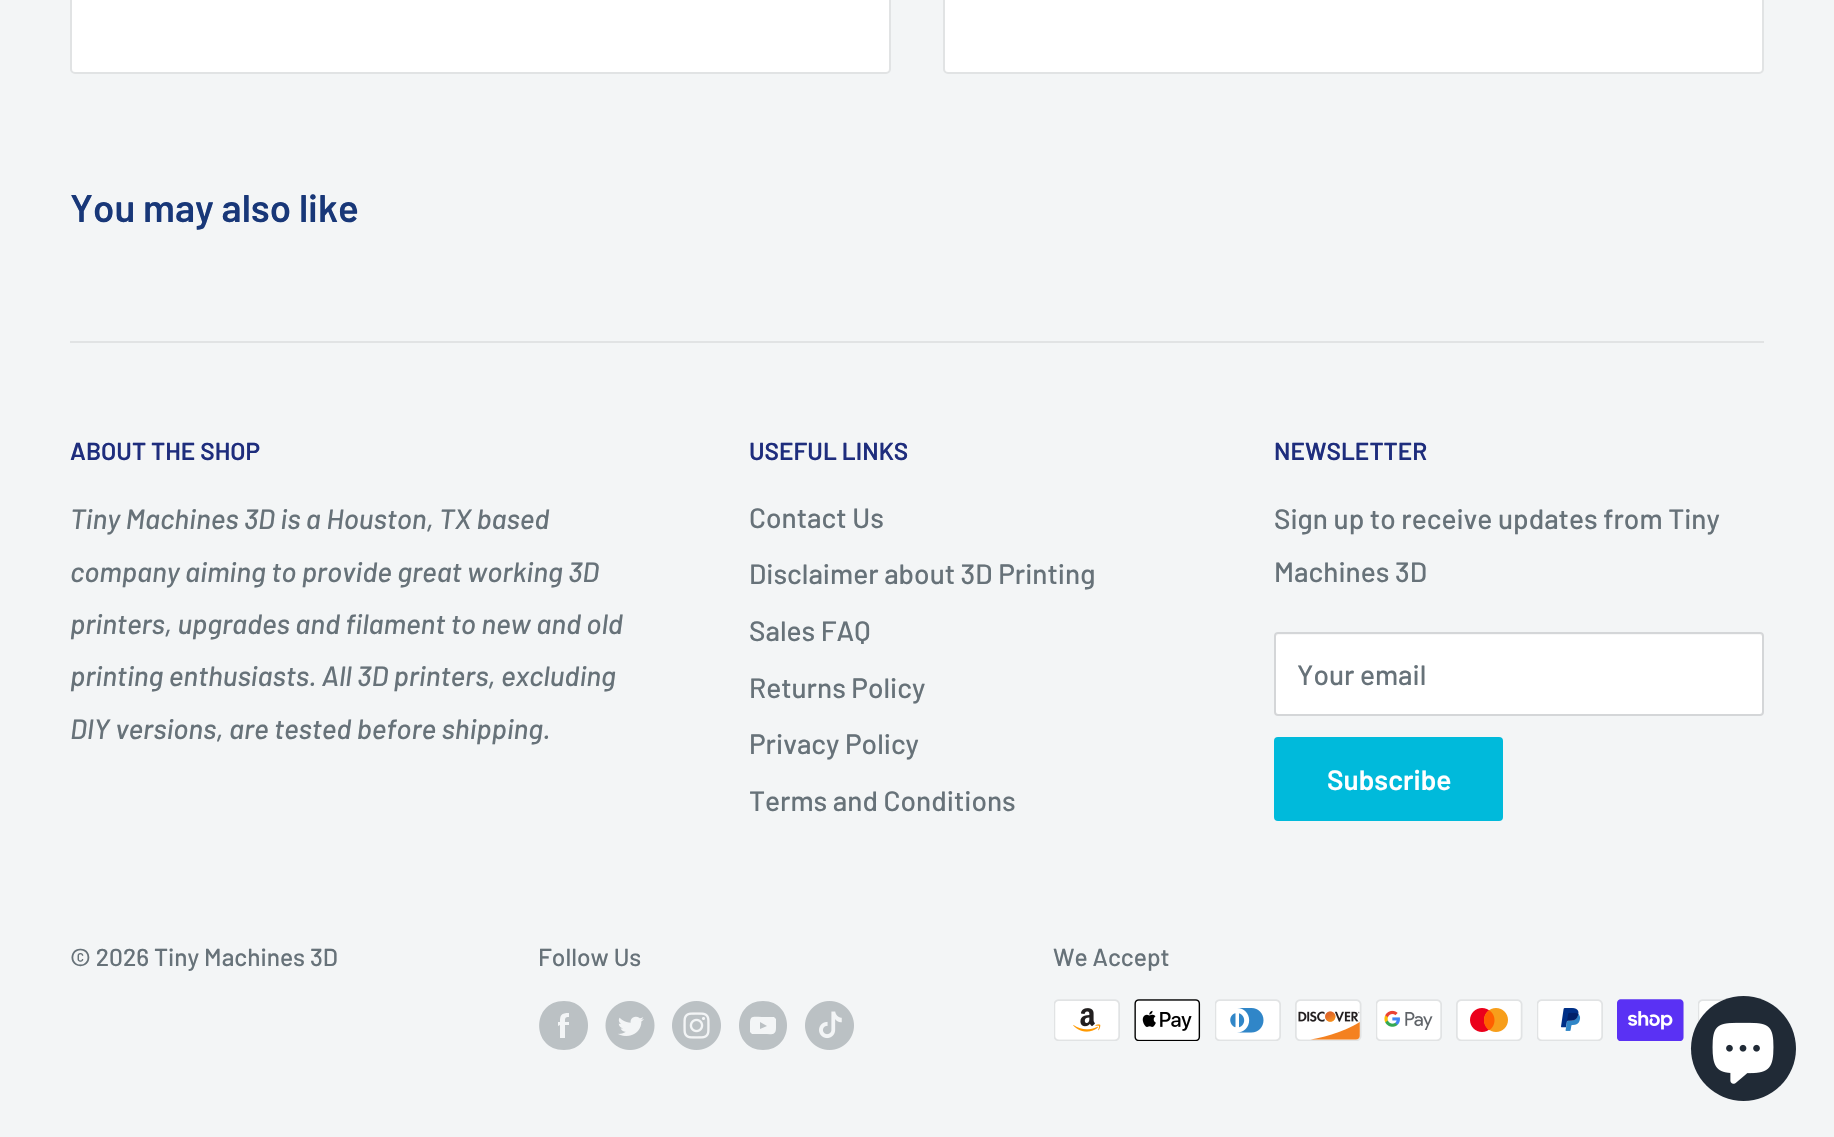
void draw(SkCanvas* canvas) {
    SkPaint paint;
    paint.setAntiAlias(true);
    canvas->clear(0xFFF3F5F6);
    paint.setColor(0xFFFFFFFF);
    canvas->drawRoundRect(SkRect::MakeXYWH(71, -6, 819, 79), 4, 4, paint);
    paint.setStyle(SkPaint::kStroke_Style);
    paint.setStrokeWidth(2);
    paint.setColor(0xFFE1E3E4);
    canvas->drawRoundRect(SkRect::MakeXYWH(71, -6, 819, 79), 4, 4, paint);
    paint.setStyle(SkPaint::kFill_Style);
    paint.setColor(0xFFFFFFFF);
    canvas->drawRoundRect(SkRect::MakeXYWH(944, -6, 819, 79), 4, 4, paint);
    paint.setStyle(SkPaint::kStroke_Style);
    paint.setColor(0xFFE1E3E4);
    canvas->drawRoundRect(SkRect::MakeXYWH(944, -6, 819, 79), 4, 4, paint);
    SkFont font1(fontMgr->matchFamilyStyle("Barlow", SkFontStyle(600, SkFontStyle::kNormal_Width, SkFontStyle::kUpright_Slant)), 38.5f);
    font1.setSubpixel(true);
    paint.setStyle(SkPaint::kFill_Style);
    paint.setColor(0xFF183778);
    canvas->drawString("You may also like", 70, 222, font1, paint);
    paint.setColor(0xFFE1E3E4);
    canvas->drawRect(SkRect::MakeXYWH(70, 341, 1694, 2), paint);
    SkFont font2(fontMgr->matchFamilyStyle("Barlow", SkFontStyle(600, SkFontStyle::kNormal_Width, SkFontStyle::kUpright_Slant)), 24.5f);
    font2.setSubpixel(true);
    paint.setColor(0xFF1E2D7D);
    canvas->drawString("ABOUT THE SHOP", 70, 460, font2, paint);
    SkFont font3(fontMgr->matchFamilyStyle("Barlow", SkFontStyle(500, SkFontStyle::kNormal_Width, SkFontStyle::kItalic_Slant)), 28);
    font3.setSubpixel(true);
    paint.setColor(0xFF677279);
    canvas->drawString("Tiny Machines 3D is a Houston, TX based", 70, 529, font3, paint);
    canvas->drawString("company aiming to provide great working 3D", 70, 582, font3, paint);
    canvas->drawString("printers, upgrades and filament to new and old", 70, 634, font3, paint);
    canvas->drawString("printing enthusiasts. All 3D printers, excluding", 70, 686, font3, paint);
    canvas->drawString("DIY versions, are tested before shipping.", 70, 739, font3, paint);
    paint.setColor(0xFF1E2D7D);
    canvas->drawString("USEFUL LINKS", 749, 460, font2, paint);
    SkFont font4(fontMgr->matchFamilyStyle("Barlow", SkFontStyle(500, SkFontStyle::kNormal_Width, SkFontStyle::kUpright_Slant)), 28);
    font4.setSubpixel(true);
    paint.setColor(0xFF677279);
    canvas->drawString("Contact Us", 749, 528, font4, paint);
    canvas->drawString("Disclaimer about 3D Printing", 749, 584, font4, paint);
    canvas->drawString("Sales FAQ", 749, 641, font4, paint);
    canvas->drawString("Returns Policy", 749, 698, font4, paint);
    canvas->drawString("Privacy Policy", 749, 754, font4, paint);
    canvas->drawString("Terms and Conditions", 749, 811, font4, paint);
    paint.setColor(0xFF1E2D7D);
    canvas->drawString("NEWSLETTER", 1274, 460, font2, paint);
    paint.setColor(0xFF677279);
    canvas->drawString("Sign up to receive updates from Tiny", 1274, 529, font4, paint);
    canvas->drawString("Machines 3D", 1274, 582, font4, paint);
    paint.setColor(0xFFFFFFFF);
    canvas->drawRoundRect(SkRect::MakeXYWH(1274, 632, 490, 84), 4, 4, paint);
    paint.setColor(0xFFF8F8F8);
    canvas->drawPath(SkPathBuilder().moveTo(1278, 635).lineTo(1760, 635).cubicTo(1761, 635, 1762, 636, 1762, 637).lineTo(1762, 635).lineTo(1760, 634).lineTo(1278, 634).cubicTo(1276, 634, 1276, 636, 1276, 637).cubicTo(1276, 636, 1277, 635, 1278, 635).close().detach(), paint);
    paint.setStyle(SkPaint::kStroke_Style);
    paint.setColor(0xFFD4D6D8);
    canvas->drawRoundRect(SkRect::MakeXYWH(1275, 633, 488, 82), 3, 3, paint);
    paint.setStyle(SkPaint::kFill_Style);
    paint.setColor(0xFF677279);
    canvas->drawString("Your email", 1297, 685, font4, paint);
    paint.setColor(0xFF00BADB);
    canvas->drawRoundRect(SkRect::MakeXYWH(1274, 737, 229, 84), 4, 4, paint);
    SkFont font5(fontMgr->matchFamilyStyle("Barlow", SkFontStyle(600, SkFontStyle::kNormal_Width, SkFontStyle::kUpright_Slant)), 28);
    font5.setSubpixel(true);
    paint.setColor(0xFFFFFFFF);
    canvas->drawString("Subscribe", 1327, 790, font5, paint);
    SkFont font6(fontMgr->matchFamilyStyle("Barlow", SkFontStyle(500, SkFontStyle::kNormal_Width, SkFontStyle::kUpright_Slant)), 24.5f);
    font6.setSubpixel(true);
    paint.setColor(0xFF677279);
    canvas->drawString("© 2026 Tiny Machines 3D", 70, 966, font6, paint);
    canvas->drawString("Follow Us", 538, 966, font6, paint);
    paint.setColor(0xFFBBC1C4);
    canvas->drawPath(SkPathBuilder(SkPathFillType::kEvenOdd).moveTo(564, 1050).cubicTo(531, 1050, 531, 1001, 564, 1001).cubicTo(596, 1001, 596, 1050, 564, 1050).close().moveTo(569, 1022).lineTo(565, 1022).cubicTo(565, 1018, 565, 1017, 569, 1017).lineTo(569, 1013).cubicTo(561, 1013, 560, 1015, 560, 1022).lineTo(558, 1022).lineTo(558, 1026).lineTo(560, 1025).lineTo(560, 1038).lineTo(565, 1038).lineTo(565, 1025).lineTo(569, 1025).close().detach(), paint);
    canvas->drawImageRect(SkImages::DeferredFromEncodedData(SkData::MakeFromFileName("img1.png")), SkRect::MakeXYWH(605, 1001, 50, 49), SkSamplingOptions());
    canvas->drawImageRect(SkImages::DeferredFromEncodedData(SkData::MakeFromFileName("img2.png")), SkRect::MakeXYWH(672, 1001, 49, 49), SkSamplingOptions());
    canvas->drawPath(SkPathBuilder(SkPathFillType::kEvenOdd).moveTo(763, 1050).cubicTo(795, 1050, 795, 1001, 763, 1001).cubicTo(731, 1001, 731, 1050, 763, 1050).close().moveTo(776, 1019).lineTo(776, 1028).cubicTo(776, 1036, 771, 1034, 763, 1034).lineTo(752, 1034).lineTo(750, 1032).lineTo(750, 1023).cubicTo(750, 1015, 754, 1017, 762, 1017).lineTo(774, 1017).close().moveTo(760, 1029).lineTo(767, 1026).lineTo(760, 1022).close().detach(), paint);
    canvas->drawImageRect(SkImages::DeferredFromEncodedData(SkData::MakeFromFileName("img3.png")), SkRect::MakeXYWH(805, 1001, 49, 49), SkSamplingOptions());
    paint.setColor(0xFF677279);
    canvas->drawString("We Accept", 1053, 966, font6, paint);
    canvas->drawImageRect(SkImages::DeferredFromEncodedData(SkData::MakeFromFileName("img4.png")), SkRect::MakeXYWH(1054, 999, 66, 42), SkSamplingOptions());
    canvas->drawImageRect(SkImages::DeferredFromEncodedData(SkData::MakeFromFileName("img5.png")), SkRect::MakeXYWH(1134, 999, 67, 42), SkSamplingOptions());
    canvas->drawImageRect(SkImages::DeferredFromEncodedData(SkData::MakeFromFileName("img6.png")), SkRect::MakeXYWH(1215, 999, 66, 42), SkSamplingOptions());
    canvas->drawImageRect(SkImages::DeferredFromEncodedData(SkData::MakeFromFileName("img7.png")), SkRect::MakeXYWH(1295, 999, 67, 42), SkSamplingOptions());
    canvas->drawImageRect(SkImages::DeferredFromEncodedData(SkData::MakeFromFileName("img8.png")), SkRect::MakeXYWH(1376, 999, 66, 42), SkSamplingOptions());
    canvas->drawImageRect(SkImages::DeferredFromEncodedData(SkData::MakeFromFileName("img9.png")), SkRect::MakeXYWH(1456, 999, 67, 42), SkSamplingOptions());
    canvas->drawImageRect(SkImages::DeferredFromEncodedData(SkData::MakeFromFileName("img10.png")), SkRect::MakeXYWH(1537, 999, 66, 42), SkSamplingOptions());
    canvas->drawImageRect(SkImages::DeferredFromEncodedData(SkData::MakeFromFileName("img11.png")), SkRect::MakeXYWH(1617, 999, 67, 42), SkSamplingOptions());
    canvas->drawImageRect(SkImages::DeferredFromEncodedData(SkData::MakeFromFileName("img12.png")), SkRect::MakeXYWH(1698, 999, 28, 24), SkSamplingOptions());
    paint.setColor(0xFF202A36);
    canvas->drawCircle(1743.5f, 1048.5f, 52.5f, paint);
    canvas->drawImageRect(SkImages::DeferredFromEncodedData(SkData::MakeFromFileName("img13.png")), SkRect::MakeXYWH(1712, 1022, 62, 62), SkSamplingOptions());
}
